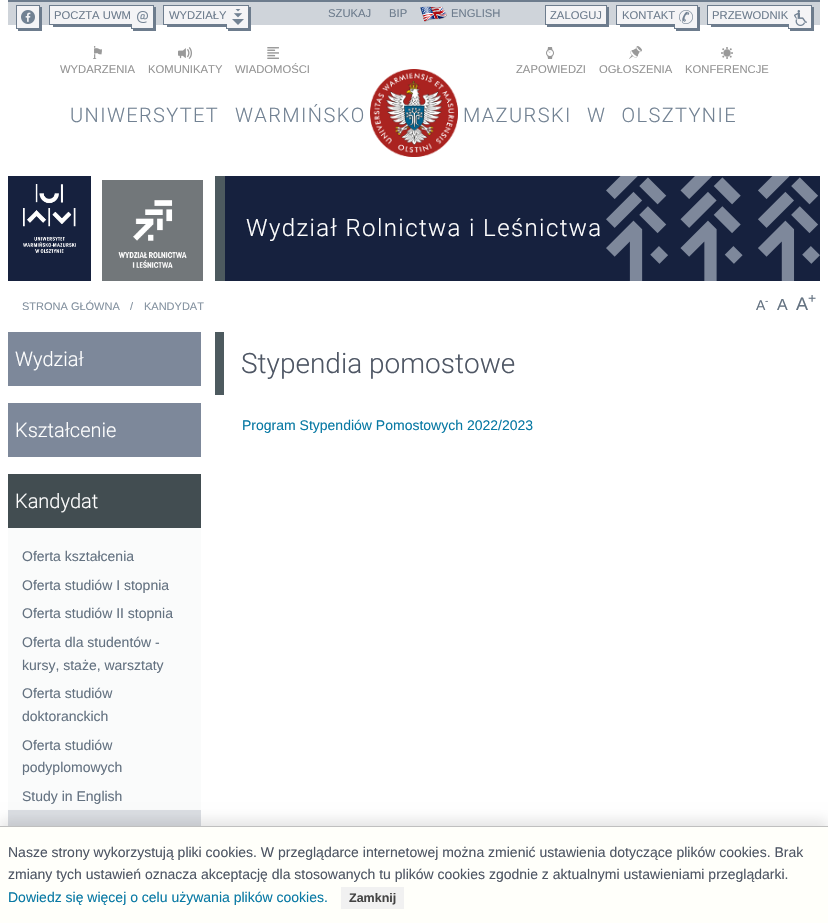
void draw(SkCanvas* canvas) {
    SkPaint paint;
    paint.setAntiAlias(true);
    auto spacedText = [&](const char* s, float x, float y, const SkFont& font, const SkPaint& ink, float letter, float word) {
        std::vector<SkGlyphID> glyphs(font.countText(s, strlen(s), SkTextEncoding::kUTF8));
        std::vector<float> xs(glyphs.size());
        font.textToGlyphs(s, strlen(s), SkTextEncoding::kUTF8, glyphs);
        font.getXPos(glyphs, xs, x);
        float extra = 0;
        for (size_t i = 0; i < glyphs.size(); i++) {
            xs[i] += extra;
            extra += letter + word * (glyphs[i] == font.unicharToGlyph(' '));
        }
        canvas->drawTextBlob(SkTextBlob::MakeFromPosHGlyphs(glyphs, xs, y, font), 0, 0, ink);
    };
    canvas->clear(0xFFFFFFFF);
    paint.setColor(0xFF6D7C8D);
    canvas->drawRect(SkRect::MakeXYWH(8, 0, 812, 2), paint);
    paint.setColor(0xFFCFD4DA);
    canvas->drawRect(SkRect::MakeXYWH(8, 2, 812, 23), paint);
    paint.setColor(0xFF6D7C8D);
    canvas->drawPath(SkPathBuilder().moveTo(18, 29).lineTo(18, 31).lineTo(42, 31).lineTo(42, 7).lineTo(40, 7).lineTo(40, 29).close().detach(), paint);
    paint.setColor(0xFFF4F4F6);
    canvas->drawRect(SkRect::MakeXYWH(16.5f, 5.5f, 23, 23), paint);
    paint.setStyle(SkPaint::kStroke_Style);
    paint.setStrokeWidth(1);
    paint.setColor(0xFF6D7C8D);
    canvas->drawRect(SkRect::MakeXYWH(16.5f, 5.5f, 23, 23), paint);
    canvas->drawImageRect(SkImages::DeferredFromEncodedData(SkData::MakeFromFileName("img1.png")), SkRect::MakeXYWH(21, 10, 14, 14), SkSamplingOptions());
    paint.setStyle(SkPaint::kFill_Style);
    canvas->drawPath(SkPathBuilder().moveTo(133, 29).lineTo(133, 31).lineTo(156, 31).lineTo(156, 7).lineTo(154, 7).lineTo(154, 29).close().detach(), paint);
    paint.setColor(0xFFF4F4F6);
    canvas->drawRect(SkRect::MakeXYWH(131.5f, 5.5f, 22, 23), paint);
    paint.setStyle(SkPaint::kStroke_Style);
    paint.setColor(0xFF6D7C8D);
    canvas->drawRect(SkRect::MakeXYWH(131.5f, 5.5f, 22, 23), paint);
    paint.setStyle(SkPaint::kFill_Style);
    canvas->drawRect(SkRect::MakeXYWH(53, 25, 79, 2), paint);
    paint.setColor(0xFFF4F4F6);
    canvas->drawRect(SkRect::MakeXYWH(50, 6, 82, 18), paint);
    paint.setColor(0xFF6D7C8D);
    canvas->drawRect(SkRect::MakeXYWH(49, 5, 83, 1), paint);
    canvas->drawRect(SkRect::MakeXYWH(49, 24, 83, 1), paint);
    canvas->drawRect(SkRect::MakeXYWH(49, 5, 1, 20), paint);
    SkFont font1(fontMgr->matchFamilyStyle("Liberation Sans", SkFontStyle::Normal()), 11.25f);
    font1.setSubpixel(true);
    canvas->drawString("POCZTA UWM", 54, 19, font1, paint);
    canvas->drawImageRect(SkImages::DeferredFromEncodedData(SkData::MakeFromFileName("img2.png")), SkRect::MakeXYWH(137, 11, 11, 12), SkSamplingOptions());
    canvas->drawPath(SkPathBuilder().moveTo(228, 29).lineTo(228, 31).lineTo(251, 31).lineTo(251, 7).lineTo(249, 7).lineTo(249, 29).close().detach(), paint);
    paint.setColor(0xFFF4F4F6);
    canvas->drawRect(SkRect::MakeXYWH(226.5f, 5.5f, 22, 23), paint);
    paint.setStyle(SkPaint::kStroke_Style);
    paint.setColor(0xFF6D7C8D);
    canvas->drawRect(SkRect::MakeXYWH(226.5f, 5.5f, 22, 23), paint);
    paint.setStyle(SkPaint::kFill_Style);
    canvas->drawRect(SkRect::MakeXYWH(167, 25, 60, 2), paint);
    paint.setColor(0xFFF4F4F6);
    canvas->drawRect(SkRect::MakeXYWH(164, 6, 63, 18), paint);
    paint.setColor(0xFF6D7C8D);
    canvas->drawRect(SkRect::MakeXYWH(163, 5, 64, 1), paint);
    canvas->drawRect(SkRect::MakeXYWH(163, 24, 64, 1), paint);
    canvas->drawRect(SkRect::MakeXYWH(163, 5, 1, 20), paint);
    canvas->drawString("WYDZIAŁY", 169, 19, font1, paint);
    canvas->drawImageRect(SkImages::DeferredFromEncodedData(SkData::MakeFromFileName("img3.png")), SkRect::MakeXYWH(232, 9, 12, 16), SkSamplingOptions());
    canvas->drawString("SZUKAJ", 328, 17, font1, paint);
    canvas->drawString("BIP", 389, 17, font1, paint);
    canvas->drawImageRect(SkImages::DeferredFromEncodedData(SkData::MakeFromFileName("img4.png")), SkRect::MakeXYWH(420, 6, 27, 16), SkSamplingOptions());
    canvas->drawString("ENGLISH", 451, 17, font1, paint);
    canvas->drawPath(SkPathBuilder().moveTo(547, 25).lineTo(547, 27).lineTo(609, 27).lineTo(609, 7).lineTo(607, 7).lineTo(607, 25).close().detach(), paint);
    paint.setColor(0xFFF4F4F6);
    canvas->drawRect(SkRect::MakeXYWH(545.5f, 5.5f, 61, 19), paint);
    paint.setStyle(SkPaint::kStroke_Style);
    paint.setColor(0xFF6D7C8D);
    canvas->drawRect(SkRect::MakeXYWH(545.5f, 5.5f, 61, 19), paint);
    paint.setStyle(SkPaint::kFill_Style);
    canvas->drawString("ZALOGUJ", 550, 19, font1, paint);
    canvas->drawPath(SkPathBuilder().moveTo(676, 29).lineTo(676, 31).lineTo(700, 31).lineTo(700, 7).lineTo(698, 7).lineTo(698, 29).close().detach(), paint);
    paint.setColor(0xFFF4F4F6);
    canvas->drawRect(SkRect::MakeXYWH(674.5f, 5.5f, 23, 23), paint);
    paint.setStyle(SkPaint::kStroke_Style);
    paint.setColor(0xFF6D7C8D);
    canvas->drawRect(SkRect::MakeXYWH(674.5f, 5.5f, 23, 23), paint);
    paint.setStyle(SkPaint::kFill_Style);
    canvas->drawRect(SkRect::MakeXYWH(620, 25, 55, 2), paint);
    paint.setColor(0xFFF4F4F6);
    canvas->drawRect(SkRect::MakeXYWH(617, 6, 58, 18), paint);
    paint.setColor(0xFF6D7C8D);
    canvas->drawRect(SkRect::MakeXYWH(616, 5, 59, 1), paint);
    canvas->drawRect(SkRect::MakeXYWH(616, 24, 59, 1), paint);
    canvas->drawRect(SkRect::MakeXYWH(616, 5, 1, 20), paint);
    canvas->drawString("KONTAKT", 622, 19, font1, paint);
    canvas->drawImageRect(SkImages::DeferredFromEncodedData(SkData::MakeFromFileName("img5.png")), SkRect::MakeXYWH(679, 10, 14, 14), SkSamplingOptions());
    canvas->drawPath(SkPathBuilder().moveTo(790, 29).lineTo(790, 31).lineTo(814, 31).lineTo(814, 7).lineTo(812, 7).lineTo(812, 29).close().detach(), paint);
    paint.setColor(0xFFF4F4F6);
    canvas->drawRect(SkRect::MakeXYWH(788.5f, 5.5f, 23, 23), paint);
    paint.setStyle(SkPaint::kStroke_Style);
    paint.setColor(0xFF6D7C8D);
    canvas->drawRect(SkRect::MakeXYWH(788.5f, 5.5f, 23, 23), paint);
    paint.setStyle(SkPaint::kFill_Style);
    canvas->drawRect(SkRect::MakeXYWH(711, 25, 78, 2), paint);
    paint.setColor(0xFFF4F4F6);
    canvas->drawRect(SkRect::MakeXYWH(708, 6, 81, 18), paint);
    paint.setColor(0xFF6D7C8D);
    canvas->drawRect(SkRect::MakeXYWH(707, 5, 82, 1), paint);
    canvas->drawRect(SkRect::MakeXYWH(707, 24, 82, 1), paint);
    canvas->drawRect(SkRect::MakeXYWH(707, 5, 1, 20), paint);
    canvas->drawString("PRZEWODNIK", 712, 19, font1, paint);
    canvas->drawImageRect(SkImages::DeferredFromEncodedData(SkData::MakeFromFileName("img6.png")), SkRect::MakeXYWH(794, 10, 13, 16), SkSamplingOptions());
    canvas->drawImageRect(SkImages::DeferredFromEncodedData(SkData::MakeFromFileName("img7.png")), SkRect::MakeXYWH(93, 46, 9, 13), SkSamplingOptions());
    paint.setColor(0xFF949494);
    canvas->drawString("WYDARZENIA", 60, 73, font1, paint);
    canvas->drawImageRect(SkImages::DeferredFromEncodedData(SkData::MakeFromFileName("img8.png")), SkRect::MakeXYWH(178, 47, 14, 12), SkSamplingOptions());
    canvas->drawString("KOMUNIKATY", 148, 73, font1, paint);
    canvas->drawImageRect(SkImages::DeferredFromEncodedData(SkData::MakeFromFileName("img9.png")), SkRect::MakeXYWH(267, 47, 12, 12), SkSamplingOptions());
    canvas->drawString("WIADOMOŚCI", 235, 73, font1, paint);
    canvas->drawImageRect(SkImages::DeferredFromEncodedData(SkData::MakeFromFileName("img10.png")), SkRect::MakeXYWH(546, 47, 8, 12), SkSamplingOptions());
    canvas->drawString("ZAPOWIEDZI", 516, 73, font1, paint);
    canvas->drawImageRect(SkImages::DeferredFromEncodedData(SkData::MakeFromFileName("img11.png")), SkRect::MakeXYWH(629, 46, 13, 13), SkSamplingOptions());
    canvas->drawString("OGŁOSZENIA", 599, 73, font1, paint);
    canvas->drawImageRect(SkImages::DeferredFromEncodedData(SkData::MakeFromFileName("img12.png")), SkRect::MakeXYWH(721, 47, 12, 12), SkSamplingOptions());
    canvas->drawString("KONFERENCJE", 685, 73, font1, paint);
    SkFont font2(fontMgr->matchFamilyStyle("Roboto", SkFontStyle(300, SkFontStyle::kNormal_Width, SkFontStyle::kUpright_Slant)), 20);
    font2.setSubpixel(true);
    paint.setColor(0xFF728293);
    spacedText("UNIWERSYTET", 70, 122, font2, paint, 1.4f, 0);
    spacedText("WARMIŃSKO", 235, 122, font2, paint, 1.4f, 0);
    canvas->drawImageRect(SkImages::DeferredFromEncodedData(SkData::MakeFromFileName("img13.png")), SkRect::MakeXYWH(370, 69, 88, 88), SkSamplingOptions());
    spacedText("MAZURSKI", 463, 122, font2, paint, 1.4f, 0);
    spacedText("W OLSZTYNIE", 587, 122, font2, paint, 1.4f, 9);
    paint.setColor(0xFF16213E);
    canvas->drawRect(SkRect::MakeXYWH(8, 176, 83, 105), paint);
    canvas->drawImageRect(SkImages::DeferredFromEncodedData(SkData::MakeFromFileName("img14.png")), SkRect::MakeXYWH(23, 184, 53, 69), SkSamplingOptions());
    canvas->drawImageRect(SkImages::DeferredFromEncodedData(SkData::MakeFromFileName("img15.png")), SkRect::MakeXYWH(102, 180, 101, 101), SkSamplingOptions());
    canvas->drawRect(SkRect::MakeXYWH(225, 176, 595, 105), paint);
    canvas->drawImageRect(SkImages::DeferredFromEncodedData(SkData::MakeFromFileName("img16.png")), SkRect::MakeXYWH(606, 176, 214, 105), SkSamplingOptions());
    paint.setColor(0xFF4D5A5F);
    canvas->drawRect(SkRect::MakeXYWH(215, 176, 10, 105), paint);
    SkFont font3(fontMgr->matchFamilyStyle("Roboto", SkFontStyle(300, SkFontStyle::kNormal_Width, SkFontStyle::kUpright_Slant)), 24);
    font3.setSubpixel(true);
    paint.setColor(0xFFFFFFFF);
    spacedText("Wydział Rolnictwa i Leśnictwa", 246, 236, font3, paint, 1.4f, 0);
    SkFont font4(fontMgr->matchFamilyStyle("Liberation Sans", SkFontStyle::Normal()), 11);
    font4.setSubpixel(true);
    paint.setColor(0xFF83919F);
    canvas->drawString("STRONA GŁÓWNA", 22, 310, font4, paint);
    canvas->drawString("/", 130, 310, font4, paint);
    canvas->drawString("KANDYDAT", 144, 310, font4, paint);
    SkFont font5(fontMgr->matchFamilyStyle("Liberation Sans", SkFontStyle::Normal()), 14);
    font5.setSubpixel(true);
    paint.setColor(0xFF647281);
    canvas->drawString("A", 756, 310, font5, paint);
    SkFont font6(fontMgr->matchFamilyStyle("Liberation Sans", SkFontStyle::Normal()), 10);
    font6.setSubpixel(true);
    canvas->drawString("-", 765, 304, font6, paint);
    SkFont font7(fontMgr->matchFamilyStyle("Liberation Sans", SkFontStyle::Normal()), 16);
    font7.setSubpixel(true);
    canvas->drawString("A", 777, 310, font7, paint);
    SkFont font8(fontMgr->matchFamilyStyle("Liberation Sans", SkFontStyle::Normal()), 18);
    font8.setSubpixel(true);
    canvas->drawString("A", 796, 310, font8, paint);
    canvas->drawString("+", 808, 303, font5, paint);
    paint.setColor(0xFF7D889A);
    canvas->drawRect(SkRect::MakeXYWH(8, 332, 193, 54), paint);
    paint.setColor(0xFFFFFFFF);
    canvas->drawString("Wydział", 15, 366, font2, paint);
    paint.setColor(0xFF7D889A);
    canvas->drawRect(SkRect::MakeXYWH(8, 403, 193, 54), paint);
    paint.setColor(0xFFFFFFFF);
    canvas->drawString("Kształcenie", 15, 437, font2, paint);
    paint.setColor(0xFFFAFBFB);
    canvas->drawRect(SkRect::MakeXYWH(8, 528, 193, 282), paint);
    paint.setColor(0xFF424D51);
    canvas->drawRect(SkRect::MakeXYWH(8, 474, 193, 54), paint);
    paint.setColor(0xFFFFFFFF);
    canvas->drawString("Kandydat", 15, 508, font2, paint);
    paint.setColor(0xFF647281);
    canvas->drawString("Oferta kształcenia", 22, 561, font5, paint);
    canvas->drawString("Oferta studiów I stopnia", 22, 590, font5, paint);
    canvas->drawString("Oferta studiów II stopnia", 22, 618, font5, paint);
    canvas->drawString("Oferta dla studentów -", 22, 647, font5, paint);
    canvas->drawString("kursy, staże, warsztaty", 22, 670, font5, paint);
    canvas->drawString("Oferta studiów", 22, 698, font5, paint);
    canvas->drawString("doktoranckich", 22, 721, font5, paint);
    canvas->drawString("Oferta studiów", 22, 750, font5, paint);
    canvas->drawString("podyplomowych", 22, 772, font5, paint);
    canvas->drawString("Study in English", 22, 801, font5, paint);
    paint.setColor(0xFFDBDEE3);
    canvas->drawRect(SkRect::MakeXYWH(8, 810, 193, 16), paint);
    paint.setColor(0xFF4D5A5F);
    canvas->drawRect(SkRect::MakeXYWH(215, 332, 9, 63), paint);
    SkFont font9(fontMgr->matchFamilyStyle("Roboto", SkFontStyle(300, SkFontStyle::kNormal_Width, SkFontStyle::kUpright_Slant)), 28);
    font9.setSubpixel(true);
    paint.setColor(0xFF4E5664);
    canvas->drawString("Stypendia pomostowe", 241, 373, font9, paint);
    paint.setColor(0xFF0879A4);
    canvas->drawString("Program Stypendiów Pomostowych 2022/2023", 242, 430, font5, paint);
    paint.setColor(0x1A000000);
    paint.setMaskFilter(SkMaskFilter::MakeBlur(kNormal_SkBlurStyle, 6));
    canvas->drawRect(SkRect::MakeXYWH(0, 820, 828, 97), paint);
    paint.setMaskFilter(nullptr);
    paint.setColor(0xFFFFFFFA);
    canvas->drawRect(SkRect::MakeXYWH(0, 827, 828, 96), paint);
    paint.setColor(0xFFBFBFBF);
    canvas->drawRect(SkRect::MakeXYWH(0, 826, 828, 1), paint);
    paint.setColor(0xFF4E5664);
    canvas->drawString("Nasze strony wykorzystują pliki cookies. W przeglądarce internetowej można zmienić ustawienia dotyczące plików cookies. Brak", 8, 857, font5, paint);
    canvas->drawString("zmiany tych ustawień oznacza akceptację dla stosowanych tu plików cookies zgodnie z aktualnymi ustawieniami przeglądarki.", 8, 879, font5, paint);
    paint.setColor(0xFF0879A4);
    canvas->drawString("Dowiedz się więcej o celu używania plików cookies.", 8, 902, font5, paint);
    paint.setColor(0xFFF1F1F1);
    canvas->drawRect(SkRect::MakeXYWH(341, 887, 63, 22), paint);
    SkFont font10(fontMgr->matchFamilyStyle("Liberation Sans", SkFontStyle::Bold()), 12.5f);
    font10.setSubpixel(true);
    paint.setColor(0xFF444444);
    canvas->drawString("Zamknij", 349, 902, font10, paint);
}
